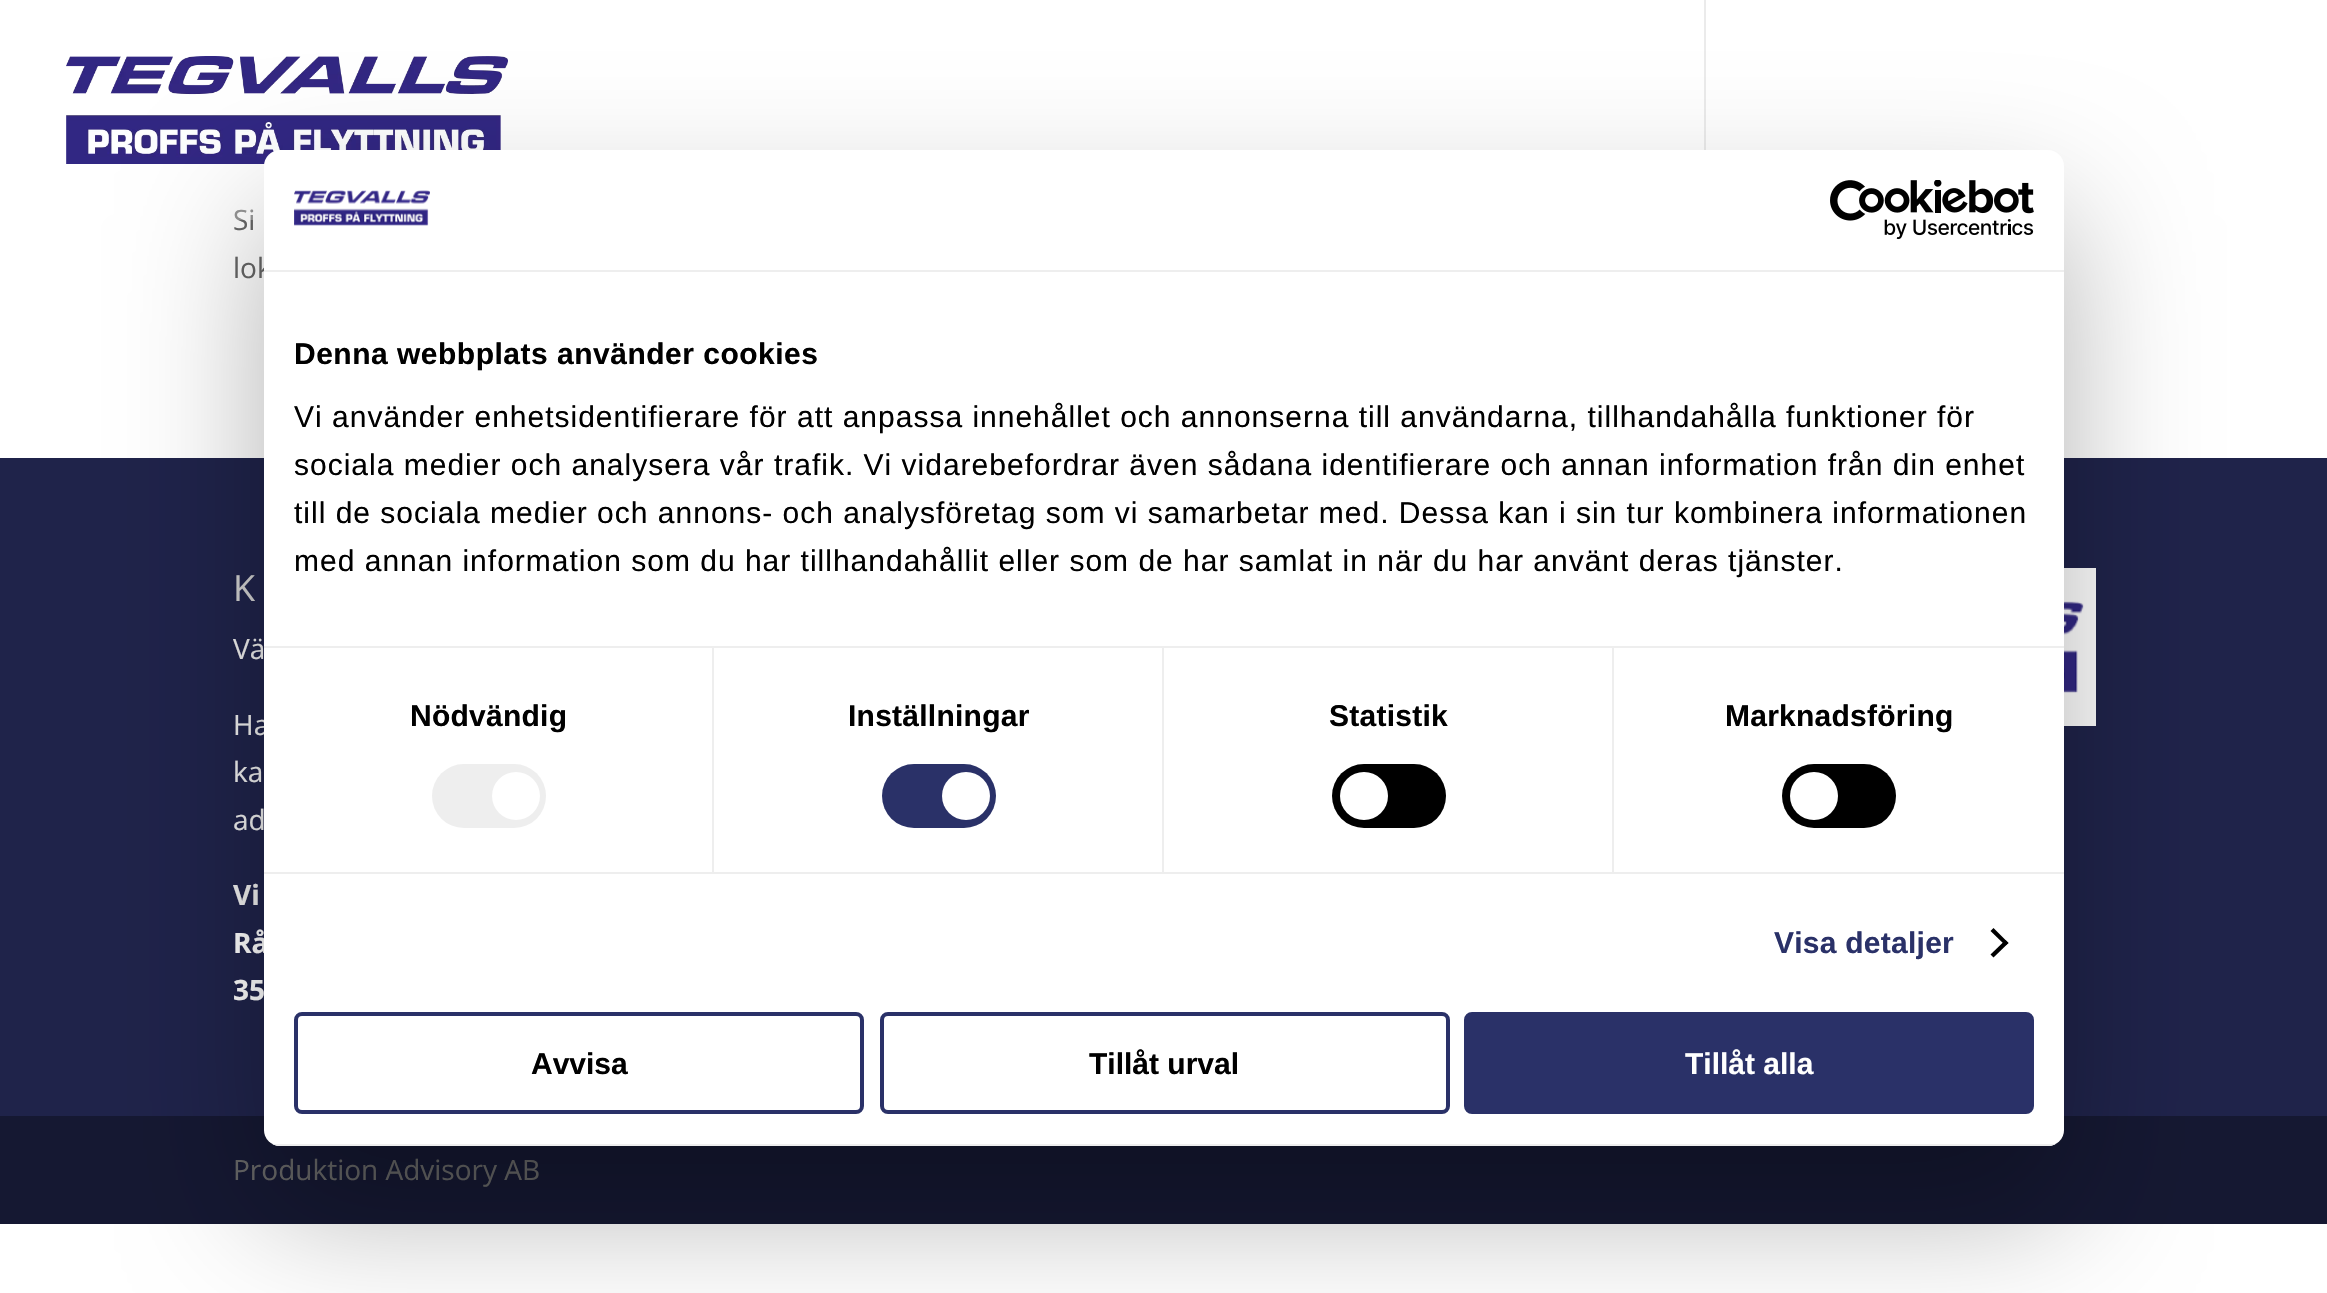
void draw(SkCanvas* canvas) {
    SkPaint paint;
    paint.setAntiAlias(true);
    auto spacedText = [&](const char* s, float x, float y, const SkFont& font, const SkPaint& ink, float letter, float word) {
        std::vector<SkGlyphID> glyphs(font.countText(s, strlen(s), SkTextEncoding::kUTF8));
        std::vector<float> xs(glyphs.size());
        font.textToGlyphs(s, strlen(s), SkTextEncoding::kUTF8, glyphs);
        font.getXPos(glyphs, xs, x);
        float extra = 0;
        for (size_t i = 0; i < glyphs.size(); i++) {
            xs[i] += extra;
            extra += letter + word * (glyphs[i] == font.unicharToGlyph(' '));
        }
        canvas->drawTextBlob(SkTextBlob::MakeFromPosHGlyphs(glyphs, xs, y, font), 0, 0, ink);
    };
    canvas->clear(0xFFFFFFFF);
    paint.setColor(0xFFE2E2E2);
    canvas->drawRect(SkRect::MakeXYWH(1704, 0, 2, 150), paint);
    SkFont font1(fontMgr->matchFamilyStyle("Open Sans", SkFontStyle::Normal()), 28);
    font1.setSubpixel(true);
    paint.setColor(0xFF666666);
    canvas->drawString("Si", 233, 230, font1, paint);
    paint.setColor(0x4FFFFFFF);
    canvas->drawRect(SkRect::MakeXYWH(234, 0, 1472, 220), paint);
    canvas->drawImageRect(SkImages::DeferredFromEncodedData(SkData::MakeFromFileName("img1.png")), SkRect::MakeXYWH(66, 56, 442, 108), SkSamplingOptions());
    paint.setColor(0xFF666666);
    canvas->drawString("lok", 233, 278, font1, paint);
    paint.setColor(0xFF1F234A);
    canvas->drawRect(SkRect::MakeXYWH(0, 458, 2327, 658), paint);
    SkFont font2(fontMgr->matchFamilyStyle("Open Sans", SkFontStyle::Normal()), 36);
    font2.setSubpixel(true);
    paint.setColor(0xFFD1D1D1);
    canvas->drawString("K", 233, 601, font2, paint);
    paint.setColor(0xFFEFEFEF);
    canvas->drawString("Vä", 233, 659, font1, paint);
    canvas->drawString("Ha", 233, 735, font1, paint);
    canvas->drawString("ka", 233, 782, font1, paint);
    canvas->drawString("ad", 233, 830, font1, paint);
    SkFont font3(fontMgr->matchFamilyStyle("Open Sans", SkFontStyle::Bold()), 28);
    font3.setSubpixel(true);
    canvas->drawString("Vi", 233, 905, font3, paint);
    paint.setColor(0xFFFFFFFF);
    canvas->drawString("Rå", 233, 953, font3, paint);
    canvas->drawString("35", 233, 1000, font3, paint);
    canvas->drawImageRect(SkImages::DeferredFromEncodedData(SkData::MakeFromFileName("img2.png")), SkRect::MakeXYWH(2064, 568, 32, 158), SkSamplingOptions());
    paint.setColor(0xFF151832);
    canvas->drawRect(SkRect::MakeXYWH(0, 1116, 2327, 108), paint);
    paint.setColor(0xFF666666);
    canvas->drawString("Produktion Advisory AB", 233, 1180, font1, paint);
    paint.setColor(0x4D000000);
    paint.setMaskFilter(SkMaskFilter::MakeBlur(kNormal_SkBlurStyle, 68));
    canvas->drawRoundRect(SkRect::MakeXYWH(264, 214, 1800, 996), 16, 16, paint);
    paint.setMaskFilter(nullptr);
    paint.setColor(0xFFFFFFFF);
    canvas->drawRoundRect(SkRect::MakeXYWH(264, 150, 1800, 996), 16, 16, paint);
    paint.setColor(0xFFEEEEEE);
    canvas->drawRect(SkRect::MakeXYWH(264, 270, 1800, 2), paint);
    canvas->drawImageRect(SkImages::DeferredFromEncodedData(SkData::MakeFromFileName("img3.png")), SkRect::MakeXYWH(294, 190, 136, 36), SkSamplingOptions());
    canvas->drawImageRect(SkImages::DeferredFromEncodedData(SkData::MakeFromFileName("img4.png")), SkRect::MakeXYWH(1830, 180, 204, 60), SkSamplingOptions());
    canvas->drawRect(SkRect::MakeXYWH(264, 646, 1800, 2), paint);
    SkFont font4(fontMgr->matchFamilyStyle("Liberation Sans", SkFontStyle::Bold()), 30);
    font4.setSubpixel(true);
    paint.setColor(0xFF000000);
    spacedText("Denna webbplats använder cookies", 294, 364, font4, paint, 0.5f, 0);
    SkFont font5(fontMgr->matchFamilyStyle("Liberation Sans", SkFontStyle::Normal()), 30);
    font5.setSubpixel(true);
    spacedText("Vi använder enhetsidentifierare för att anpassa innehållet och annonserna till användarna, tillhandahålla funktioner för", 294, 427, font5, paint, 1, 0);
    spacedText("sociala medier och analysera vår trafik. Vi vidarebefordrar även sådana identifierare och annan information från din enhet", 294, 475, font5, paint, 1, 0);
    spacedText("till de sociala medier och annons- och analysföretag som vi samarbetar med. Dessa kan i sin tur kombinera informationen", 294, 523, font5, paint, 1, 0);
    spacedText("med annan information som du har tillhandahållit eller som de har samlat in när du har använt deras tjänster.", 294, 571, font5, paint, 1, 0);
    paint.setColor(0xFFEEEEEE);
    canvas->drawRect(SkRect::MakeXYWH(264, 872, 1800, 2), paint);
    canvas->drawRect(SkRect::MakeXYWH(712, 648, 2, 224), paint);
    paint.setColor(0xFF000000);
    spacedText("Nödvändig", 410, 726, font4, paint, 0.25f, 0);
    paint.setColor(0xFFEEEEEE);
    canvas->drawRoundRect(SkRect::MakeXYWH(432, 764, 114, 64), 32, 32, paint);
    paint.setColor(0xFFFFFFFF);
    canvas->drawCircle(516, 796, 24, paint);
    paint.setColor(0xFFEEEEEE);
    canvas->drawRect(SkRect::MakeXYWH(1162, 648, 2, 224), paint);
    paint.setColor(0xFF000000);
    spacedText("Inställningar", 848, 726, font4, paint, 0.25f, 0);
    paint.setColor(0xFF2A3168);
    canvas->drawRoundRect(SkRect::MakeXYWH(882, 764, 114, 64), 32, 32, paint);
    paint.setColor(0xFFFFFFFF);
    canvas->drawCircle(966, 796, 24, paint);
    paint.setColor(0xFFEEEEEE);
    canvas->drawRect(SkRect::MakeXYWH(1612, 648, 2, 224), paint);
    paint.setColor(0xFF000000);
    spacedText("Statistik", 1329, 726, font4, paint, 0.25f, 0);
    canvas->drawRoundRect(SkRect::MakeXYWH(1332, 764, 114, 64), 32, 32, paint);
    paint.setColor(0xFFFFFFFF);
    canvas->drawCircle(1364, 796, 24, paint);
    paint.setColor(0xFF000000);
    spacedText("Marknadsföring", 1725, 726, font4, paint, 0.25f, 0);
    canvas->drawRoundRect(SkRect::MakeXYWH(1782, 764, 114, 64), 32, 32, paint);
    paint.setColor(0xFFFFFFFF);
    canvas->drawCircle(1814, 796, 24, paint);
    paint.setColor(0xFF2A3168);
    spacedText("Visa detaljer", 1774, 953, font4, paint, 0.25f, 0);
    paint.setColor(0xFF000000);
    canvas->drawPath(SkPathBuilder().moveTo(1993.5f, 928).lineTo(2008.5f, 943).lineTo(2005.5f, 945.5f).lineTo(1990.5f, 931).close().detach(), paint);
    canvas->drawPath(SkPathBuilder().moveTo(2005.5f, 940).lineTo(2008.5f, 943).lineTo(1993.5f, 957.5f).lineTo(1990.5f, 954.5f).close().detach(), paint);
    canvas->save();
    canvas->clipPath(SkPathBuilder().moveTo(280, 150).lineTo(2048, 150).cubicTo(2057, 150, 2064, 157, 2064, 166).lineTo(2064, 1130).cubicTo(2064, 1139, 2057, 1146, 2048, 1146).lineTo(280, 1146).cubicTo(271, 1146, 264, 1139, 264, 1130).lineTo(264, 166).cubicTo(264, 157, 271, 150, 280, 150).close().detach(), true);
    paint.setColor(0xFFEEEEEE);
    canvas->drawRect(SkRect::MakeXYWH(264, 1144, 1800, 2), paint);
    canvas->restore();
    paint.setStyle(SkPaint::kStroke_Style);
    paint.setStrokeWidth(4);
    paint.setColor(0xFF2A3168);
    canvas->drawRoundRect(SkRect::MakeXYWH(296, 1014, 566, 98), 6, 6, paint);
    paint.setStyle(SkPaint::kFill_Style);
    paint.setColor(0xFF000000);
    canvas->drawString("Avvisa", 531, 1074, font4, paint);
    paint.setStyle(SkPaint::kStroke_Style);
    paint.setColor(0xFF2A3168);
    canvas->drawRoundRect(SkRect::MakeXYWH(882, 1014, 566, 98), 6, 6, paint);
    paint.setStyle(SkPaint::kFill_Style);
    paint.setColor(0xFF000000);
    canvas->drawString("Tillåt urval", 1089, 1074, font4, paint);
    paint.setColor(0xFF2A3168);
    canvas->drawRoundRect(SkRect::MakeXYWH(1466, 1014, 566, 98), 6, 6, paint);
    paint.setStyle(SkPaint::kStroke_Style);
    canvas->drawRoundRect(SkRect::MakeXYWH(1466, 1014, 566, 98), 6, 6, paint);
    paint.setStyle(SkPaint::kFill_Style);
    paint.setColor(0xFFFFFFFF);
    canvas->drawString("Tillåt alla", 1685, 1074, font4, paint);
}
